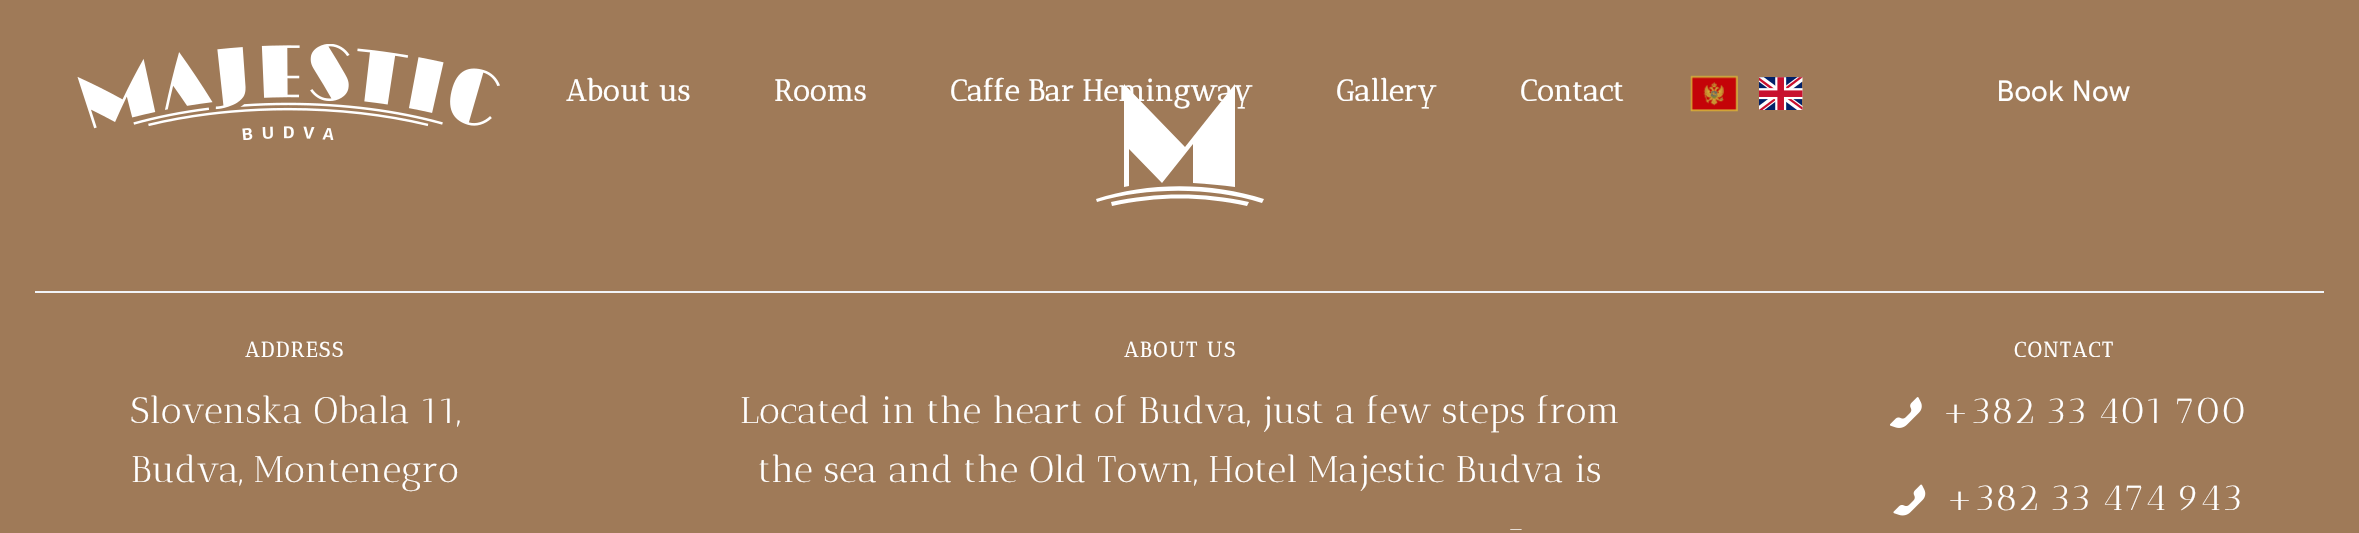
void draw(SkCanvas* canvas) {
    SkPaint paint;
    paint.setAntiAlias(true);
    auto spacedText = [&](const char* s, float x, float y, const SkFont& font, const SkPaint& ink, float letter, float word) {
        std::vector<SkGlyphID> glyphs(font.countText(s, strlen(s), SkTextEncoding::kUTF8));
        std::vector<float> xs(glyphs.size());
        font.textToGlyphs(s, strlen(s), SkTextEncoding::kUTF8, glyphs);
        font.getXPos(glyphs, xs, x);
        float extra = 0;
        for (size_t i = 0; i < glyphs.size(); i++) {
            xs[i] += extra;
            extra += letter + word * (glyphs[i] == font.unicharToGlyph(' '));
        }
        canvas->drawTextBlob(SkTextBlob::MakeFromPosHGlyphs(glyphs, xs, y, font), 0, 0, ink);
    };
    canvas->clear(0xFF9F7A58);
    canvas->drawImageRect(SkImages::DeferredFromEncodedData(SkData::MakeFromFileName("img1.png")), SkRect::MakeXYWH(77, 44, 423, 96), SkSamplingOptions());
    SkFont font1(fontMgr->matchFamilyStyle("Antic Didone", SkFontStyle::Bold()), 29.75f);
    font1.setSubpixel(true);
    paint.setColor(0xFFFFFFFF);
    canvas->drawString("About us", 566, 101, font1, paint);
    canvas->drawString("Rooms", 774, 101, font1, paint);
    canvas->drawPath(SkPathBuilder().moveTo(1193, 183).lineTo(1193, 144).lineTo(1162, 183).lineTo(1129, 149).lineTo(1129, 186).lineTo(1124, 187).lineTo(1124, 84).lineTo(1185, 147).lineTo(1235, 84).lineTo(1235, 187).cubicTo(1222, 185, 1208, 184, 1193, 183).close().detach(), paint);
    canvas->drawString("Caffe Bar Hemingway", 950, 101, font1, paint);
    canvas->drawString("Gallery", 1336, 101, font1, paint);
    canvas->drawString("Contact", 1520, 101, font1, paint);
    canvas->drawImageRect(SkImages::DeferredFromEncodedData(SkData::MakeFromFileName("img2.png")), SkRect::MakeXYWH(1690, 75, 48, 37), SkSamplingOptions());
    canvas->drawImageRect(SkImages::DeferredFromEncodedData(SkData::MakeFromFileName("img3.png")), SkRect::MakeXYWH(1759, 77, 44, 34), SkSamplingOptions());
    SkFont font2(fontMgr->matchFamilyStyle("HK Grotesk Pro", SkFontStyle(500, SkFontStyle::kNormal_Width, SkFontStyle::kUpright_Slant)), 29.75f);
    font2.setSubpixel(true);
    canvas->drawString("Book Now", 1996, 101, font2, paint);
    canvas->drawPath(SkPathBuilder().moveTo(1249, 202).lineTo(1247, 206).cubicTo(1203, 196, 1156, 196, 1112, 206).lineTo(1111, 202).cubicTo(1156, 192, 1204, 192, 1249, 202).close().detach(), paint);
    canvas->drawPath(SkPathBuilder().moveTo(1264, 199).lineTo(1262, 203).cubicTo(1210, 187, 1149, 187, 1097, 202).lineTo(1096, 199).cubicTo(1148, 182, 1211, 182, 1264, 199).close().detach(), paint);
    paint.setColor(0xFFF1F4F8);
    canvas->drawRect(SkRect::MakeXYWH(35, 291, 2289, 2), paint);
    SkFont font3(fontMgr->matchFamilyStyle("Antic Didone", SkFontStyle::Bold()), 21);
    font3.setSubpixel(true);
    paint.setColor(0xFFFFFFFF);
    spacedText("ADDRESS", 245, 357, font3, paint, 1.75f, 0);
    SkFont font4(fontMgr->matchFamilyStyle("Antic Didone", SkFontStyle::Normal()), 36.75f);
    font4.setSubpixel(true);
    canvas->drawString("Slovenska Obala 11,", 130, 423, font4, paint);
    canvas->drawString("Budva, Montenegro", 131, 482, font4, paint);
    spacedText("ABOUT US", 1124, 357, font3, paint, 1.75f, 0);
    canvas->drawString("Located in the heart of Budva, just a few steps from", 740, 423, font4, paint);
    canvas->drawString("the sea and the Old Town, Hotel Majestic Budva is", 758, 482, font4, paint);
    canvas->drawString("-", 1505, 540, font4, paint);
    spacedText("CONTACT", 2014, 357, font3, paint, 1.75f, 0);
    canvas->drawImageRect(SkImages::DeferredFromEncodedData(SkData::MakeFromFileName("img4.png")), SkRect::MakeXYWH(1890, 397, 32, 31), SkSamplingOptions());
    canvas->drawString("+382 33 401 700", 1941, 423, font4, paint);
    canvas->drawImageRect(SkImages::DeferredFromEncodedData(SkData::MakeFromFileName("img5.png")), SkRect::MakeXYWH(1893, 484, 33, 32), SkSamplingOptions());
    canvas->drawString("+382 33 474 943", 1945, 510, font4, paint);
}
